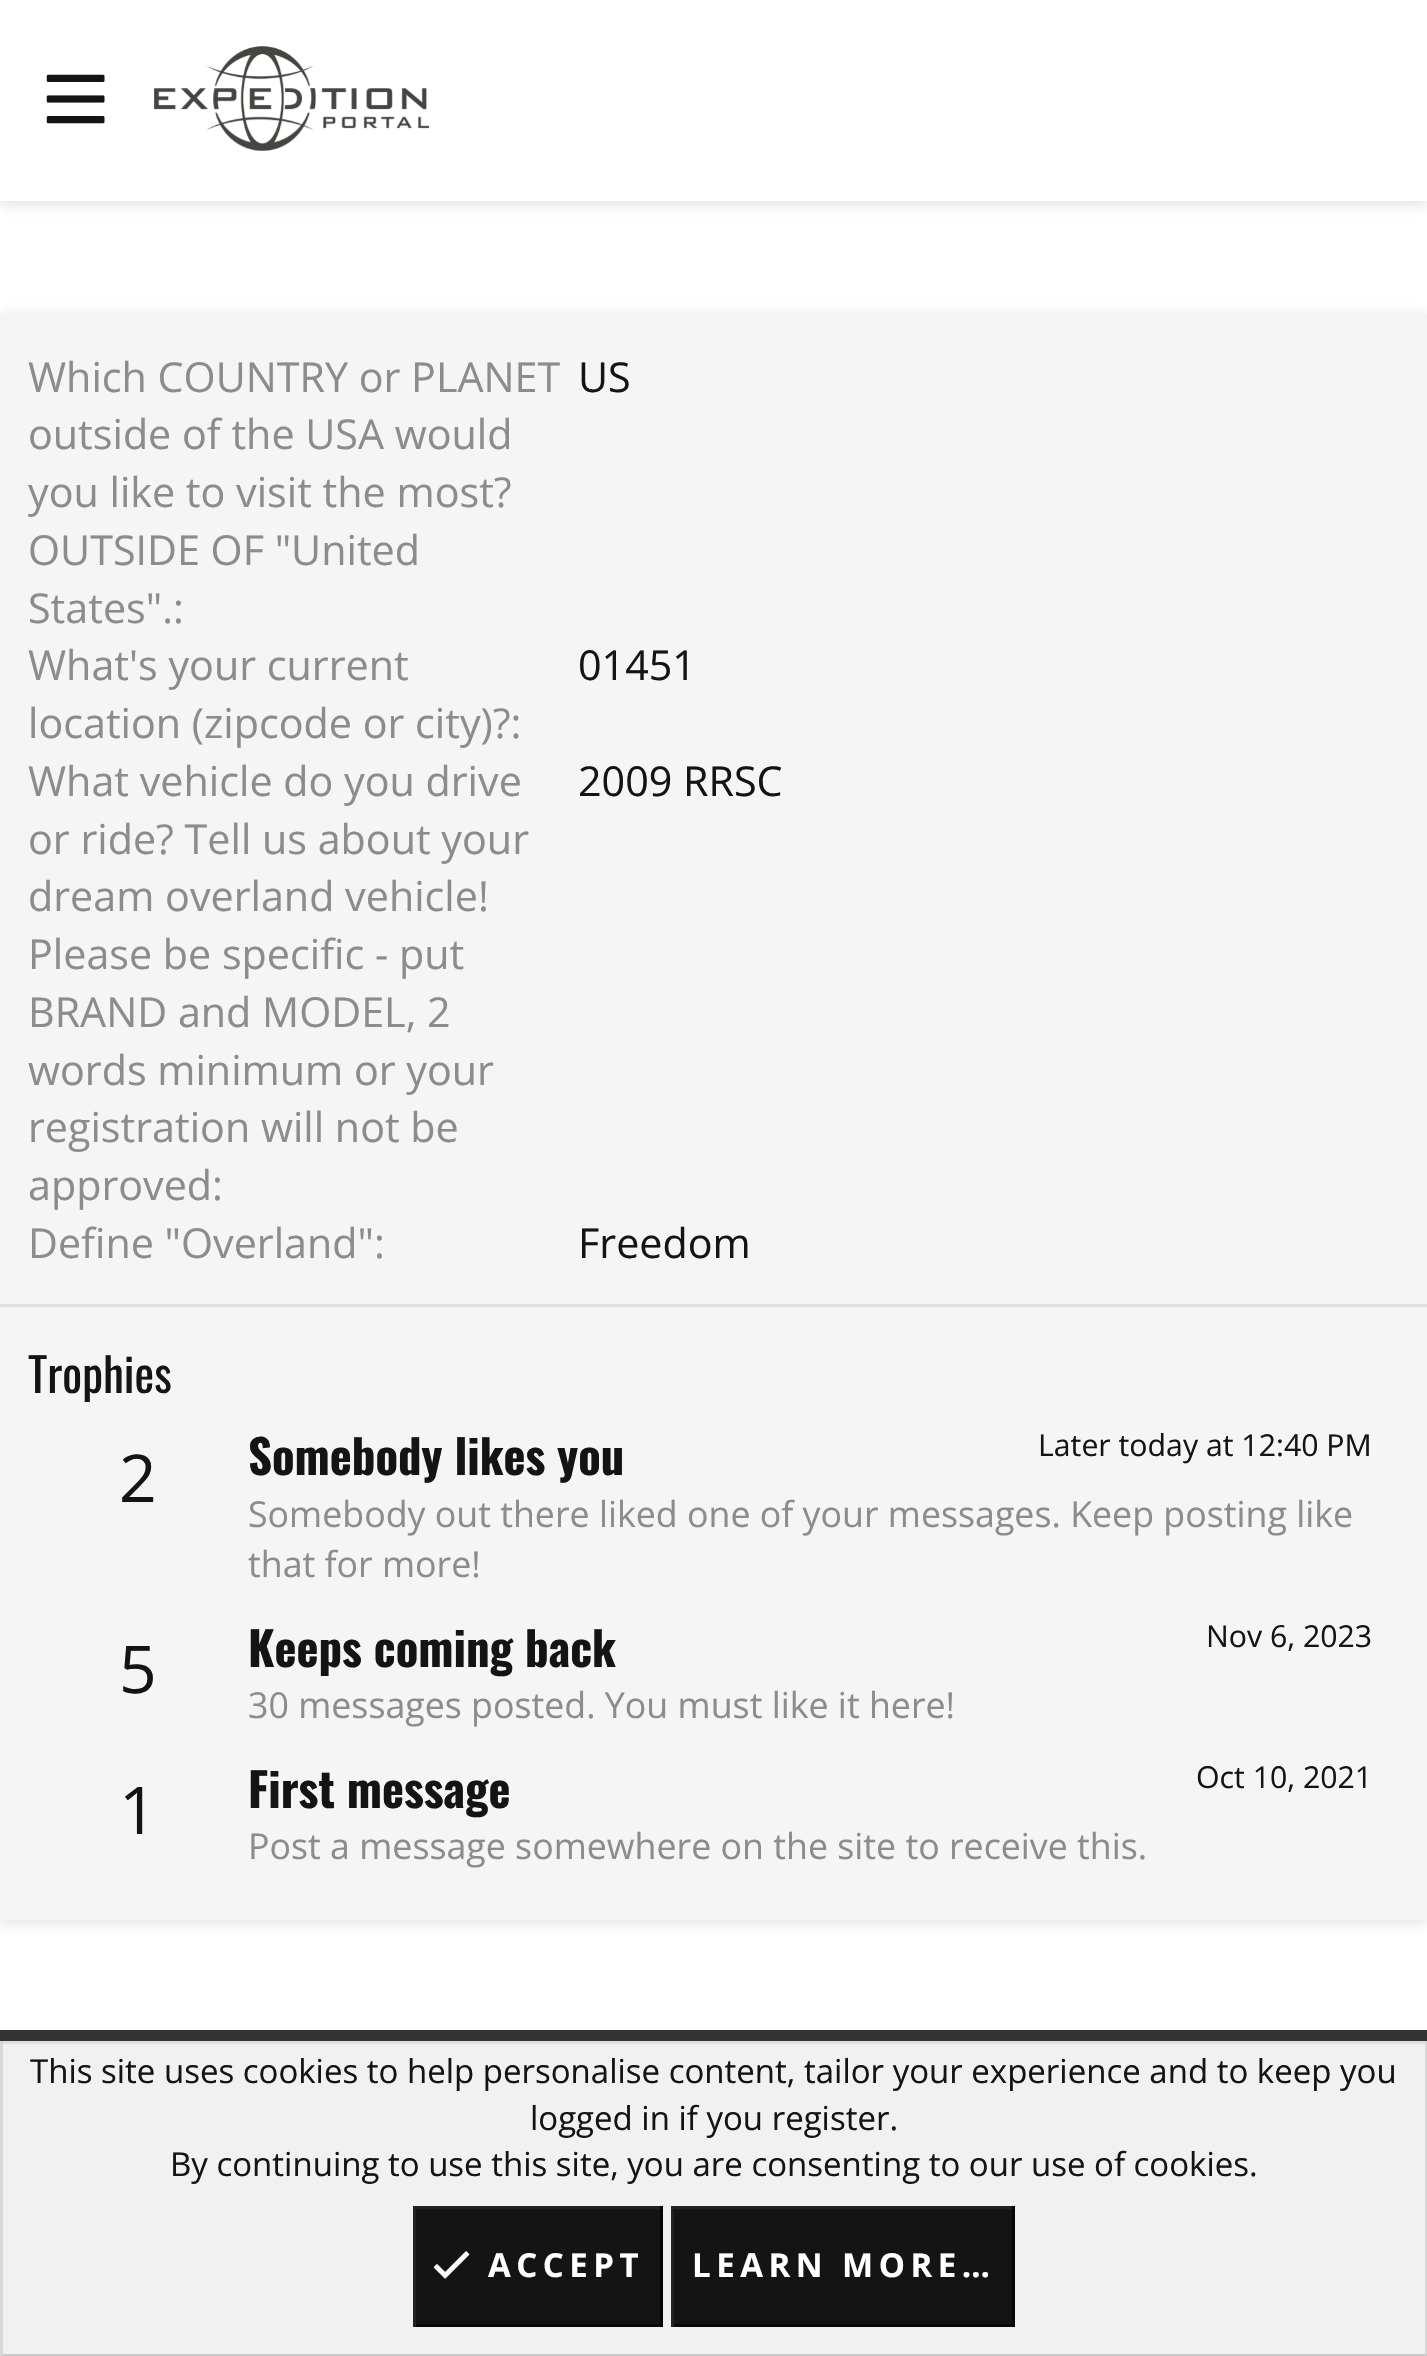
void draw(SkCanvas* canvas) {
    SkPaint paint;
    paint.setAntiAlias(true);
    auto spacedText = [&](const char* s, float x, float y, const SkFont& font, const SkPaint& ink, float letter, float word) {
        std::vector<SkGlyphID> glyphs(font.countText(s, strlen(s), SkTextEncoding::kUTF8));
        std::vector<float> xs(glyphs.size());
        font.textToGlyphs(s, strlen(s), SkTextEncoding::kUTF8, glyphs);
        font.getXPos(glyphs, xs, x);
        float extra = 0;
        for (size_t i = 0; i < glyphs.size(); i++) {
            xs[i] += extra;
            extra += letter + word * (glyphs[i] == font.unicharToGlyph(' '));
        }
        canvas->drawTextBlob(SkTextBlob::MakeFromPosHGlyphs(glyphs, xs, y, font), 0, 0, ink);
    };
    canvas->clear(0xFFFFFFFF);
    paint.setColor(0x80B9B9B9);
    paint.setMaskFilter(SkMaskFilter::MakeBlur(kNormal_SkBlurStyle, 7));
    canvas->drawRect(SkRect::MakeXYWH(0, 3, 1427, 201), paint);
    paint.setMaskFilter(nullptr);
    paint.setColor(0xFFFFFFFF);
    canvas->drawRect(SkRect::MakeXYWH(0, 0, 1427, 201), paint);
    canvas->drawImageRect(SkImages::DeferredFromEncodedData(SkData::MakeFromFileName("img1.png")), SkRect::MakeXYWH(46, 74, 59, 50), SkSamplingOptions());
    canvas->drawImageRect(SkImages::DeferredFromEncodedData(SkData::MakeFromFileName("img2.png")), SkRect::MakeXYWH(154, 46, 275, 105), SkSamplingOptions());
    paint.setColor(0x80B9B9B9);
    paint.setMaskFilter(SkMaskFilter::MakeBlur(kNormal_SkBlurStyle, 7));
    canvas->drawRect(SkRect::MakeXYWH(0, 316, 1427, 1606), paint);
    paint.setMaskFilter(nullptr);
    paint.setColor(0xFFF5F5F5);
    canvas->drawRect(SkRect::MakeXYWH(0, 314, 1427, 1606), paint);
    SkFont font1(fontMgr->matchFamilyStyle("Open Sans", SkFontStyle::Normal()), 41.25f);
    font1.setSubpixel(true);
    paint.setColor(0xFF8C8C8C);
    canvas->drawString("Which COUNTRY or PLANET", 28, 392, font1, paint);
    canvas->drawString("outside of the USA would", 28, 449, font1, paint);
    canvas->save();
    canvas->clipRect(SkRect::MakeXYWH(28, 347, 1372, 288));
    canvas->drawString("you like to visit the most?", 28, 507, font1, paint);
    canvas->restore();
    canvas->drawString("OUTSIDE OF \"United", 28, 565, font1, paint);
    canvas->drawString("States\".:", 28, 623, font1, paint);
    paint.setColor(0xFF141414);
    canvas->drawString("US", 578, 392, font1, paint);
    paint.setColor(0xFF8C8C8C);
    canvas->drawString("What's your current", 28, 680, font1, paint);
    canvas->drawString("location (zipcode or city)?:", 28, 738, font1, paint);
    paint.setColor(0xFF141414);
    canvas->drawString("01451", 578, 680, font1, paint);
    paint.setColor(0xFF8C8C8C);
    canvas->drawString("What vehicle do you drive", 28, 796, font1, paint);
    canvas->drawString("or ride? Tell us about your", 28, 854, font1, paint);
    canvas->drawString("dream overland vehicle!", 28, 911, font1, paint);
    canvas->drawString("Please be specific - put", 28, 969, font1, paint);
    canvas->drawString("BRAND and MODEL, 2", 28, 1027, font1, paint);
    canvas->drawString("words minimum or your", 28, 1085, font1, paint);
    canvas->drawString("registration will not be", 28, 1142, font1, paint);
    canvas->drawString("approved:", 28, 1200, font1, paint);
    paint.setColor(0xFF141414);
    canvas->drawString("2009 RRSC", 578, 796, font1, paint);
    paint.setColor(0xFF8C8C8C);
    canvas->drawString("Define \"Overland\":", 28, 1258, font1, paint);
    paint.setColor(0xFF141414);
    canvas->drawString("Freedom", 578, 1258, font1, paint);
    paint.setColor(0xFFDFDFDF);
    canvas->drawRect(SkRect::MakeXYWH(0, 1304, 1427, 3), paint);
    SkFont font2(fontMgr->matchFamilyStyle("Oswald", SkFontStyle::Normal()), 46.75f);
    font2.setSubpixel(true);
    paint.setColor(0xFF141414);
    canvas->drawString("Trophies", 28, 1393, font2, paint);
    SkFont font3(fontMgr->matchFamilyStyle("Open Sans", SkFontStyle::Normal()), 66);
    font3.setSubpixel(true);
    canvas->drawString("2", 119, 1502, font3, paint);
    SkFont font4(fontMgr->matchFamilyStyle("Oswald", SkFontStyle::Bold()), 46.75f);
    font4.setSubpixel(true);
    canvas->drawString("Somebody likes you", 248, 1475, font4, paint);
    SkFont font5(fontMgr->matchFamilyStyle("Open Sans", SkFontStyle::Normal()), 30.25f);
    font5.setSubpixel(true);
    canvas->drawString("Later today at 12:40 PM", 1038, 1456, font5, paint);
    SkFont font6(fontMgr->matchFamilyStyle("Open Sans", SkFontStyle::Normal()), 35.75f);
    font6.setSubpixel(true);
    paint.setColor(0xFF8C8C8C);
    canvas->drawString("Somebody out there liked one of your messages. Keep posting like", 248, 1527, font6, paint);
    canvas->drawString("that for more!", 248, 1577, font6, paint);
    paint.setColor(0xFF141414);
    canvas->drawString("5", 119, 1693, font3, paint);
    canvas->drawString("Keeps coming back", 248, 1667, font4, paint);
    canvas->drawString("Nov 6, 2023", 1206, 1647, font5, paint);
    paint.setColor(0xFF8C8C8C);
    canvas->drawString("30 messages posted. You must like it here!", 248, 1718, font6, paint);
    paint.setColor(0xFF141414);
    canvas->drawString("1", 119, 1834, font3, paint);
    canvas->drawString("First message", 248, 1808, font4, paint);
    canvas->drawString("Oct 10, 2021", 1196, 1788, font5, paint);
    paint.setColor(0xFF8C8C8C);
    canvas->drawString("Post a message somewhere on the site to receive this.", 248, 1859, font6, paint);
    paint.setColor(0xFF333333);
    canvas->drawRect(SkRect::MakeXYWH(0, 2030, 1427, 11), paint);
    paint.setColor(0xFFF1F1F1);
    canvas->drawRect(SkRect::MakeXYWH(3, 2044, 1422, 310), paint);
    paint.setColor(0xFFDFDFDF);
    canvas->drawRect(SkRect::MakeXYWH(0, 2041, 1427, 3), paint);
    paint.setColor(0xFFD8D8D8);
    canvas->drawRect(SkRect::MakeXYWH(1425, 2041, 2, 315), paint);
    paint.setColor(0xFFCBCBCB);
    canvas->drawRect(SkRect::MakeXYWH(0, 2354, 1427, 2), paint);
    paint.setColor(0xFFD8D8D8);
    canvas->drawRect(SkRect::MakeXYWH(0, 2041, 3, 315), paint);
    SkFont font7(fontMgr->matchFamilyStyle("Open Sans", SkFontStyle::Normal()), 33);
    font7.setSubpixel(true);
    paint.setColor(0xFF141414);
    canvas->drawString("This site uses cookies to help personalise content, tailor your experience and to keep you", 30, 2083, font7, paint);
    canvas->drawString("logged in if you register.", 530, 2130, font7, paint);
    canvas->drawString("By continuing to use this site, you are consenting to our use of cookies.", 170, 2176, font7, paint);
    canvas->drawRect(SkRect::MakeXYWH(416, 2209, 244, 115), paint);
    paint.setColor(0xFF212121);
    canvas->drawRect(SkRect::MakeXYWH(413, 2206, 250, 3), paint);
    paint.setColor(0xFF070707);
    canvas->drawRect(SkRect::MakeXYWH(660, 2206, 3, 121), paint);
    canvas->drawRect(SkRect::MakeXYWH(413, 2324, 250, 3), paint);
    paint.setColor(0xFF212121);
    canvas->drawRect(SkRect::MakeXYWH(413, 2206, 3, 121), paint);
    canvas->drawImageRect(SkImages::DeferredFromEncodedData(SkData::MakeFromFileName("img3.png")), SkRect::MakeXYWH(433, 2251, 37, 28), SkSamplingOptions());
    SkFont font8(fontMgr->matchFamilyStyle("Open Sans", SkFontStyle::Bold()), 33);
    font8.setSubpixel(true);
    paint.setColor(0xFFFFFFFF);
    spacedText("ACCEPT", 488, 2277, font8, paint, 5.5f, 0);
    paint.setColor(0xFF141414);
    canvas->drawRect(SkRect::MakeXYWH(674, 2209, 338, 115), paint);
    paint.setColor(0xFF212121);
    canvas->drawRect(SkRect::MakeXYWH(671, 2206, 344, 3), paint);
    paint.setColor(0xFF070707);
    canvas->drawRect(SkRect::MakeXYWH(1012, 2206, 3, 121), paint);
    canvas->drawRect(SkRect::MakeXYWH(671, 2324, 344, 3), paint);
    paint.setColor(0xFF212121);
    canvas->drawRect(SkRect::MakeXYWH(671, 2206, 3, 121), paint);
    paint.setColor(0xFFFFFFFF);
    spacedText("LEARN MORE…", 692, 2277, font8, paint, 5.5f, 0);
}
